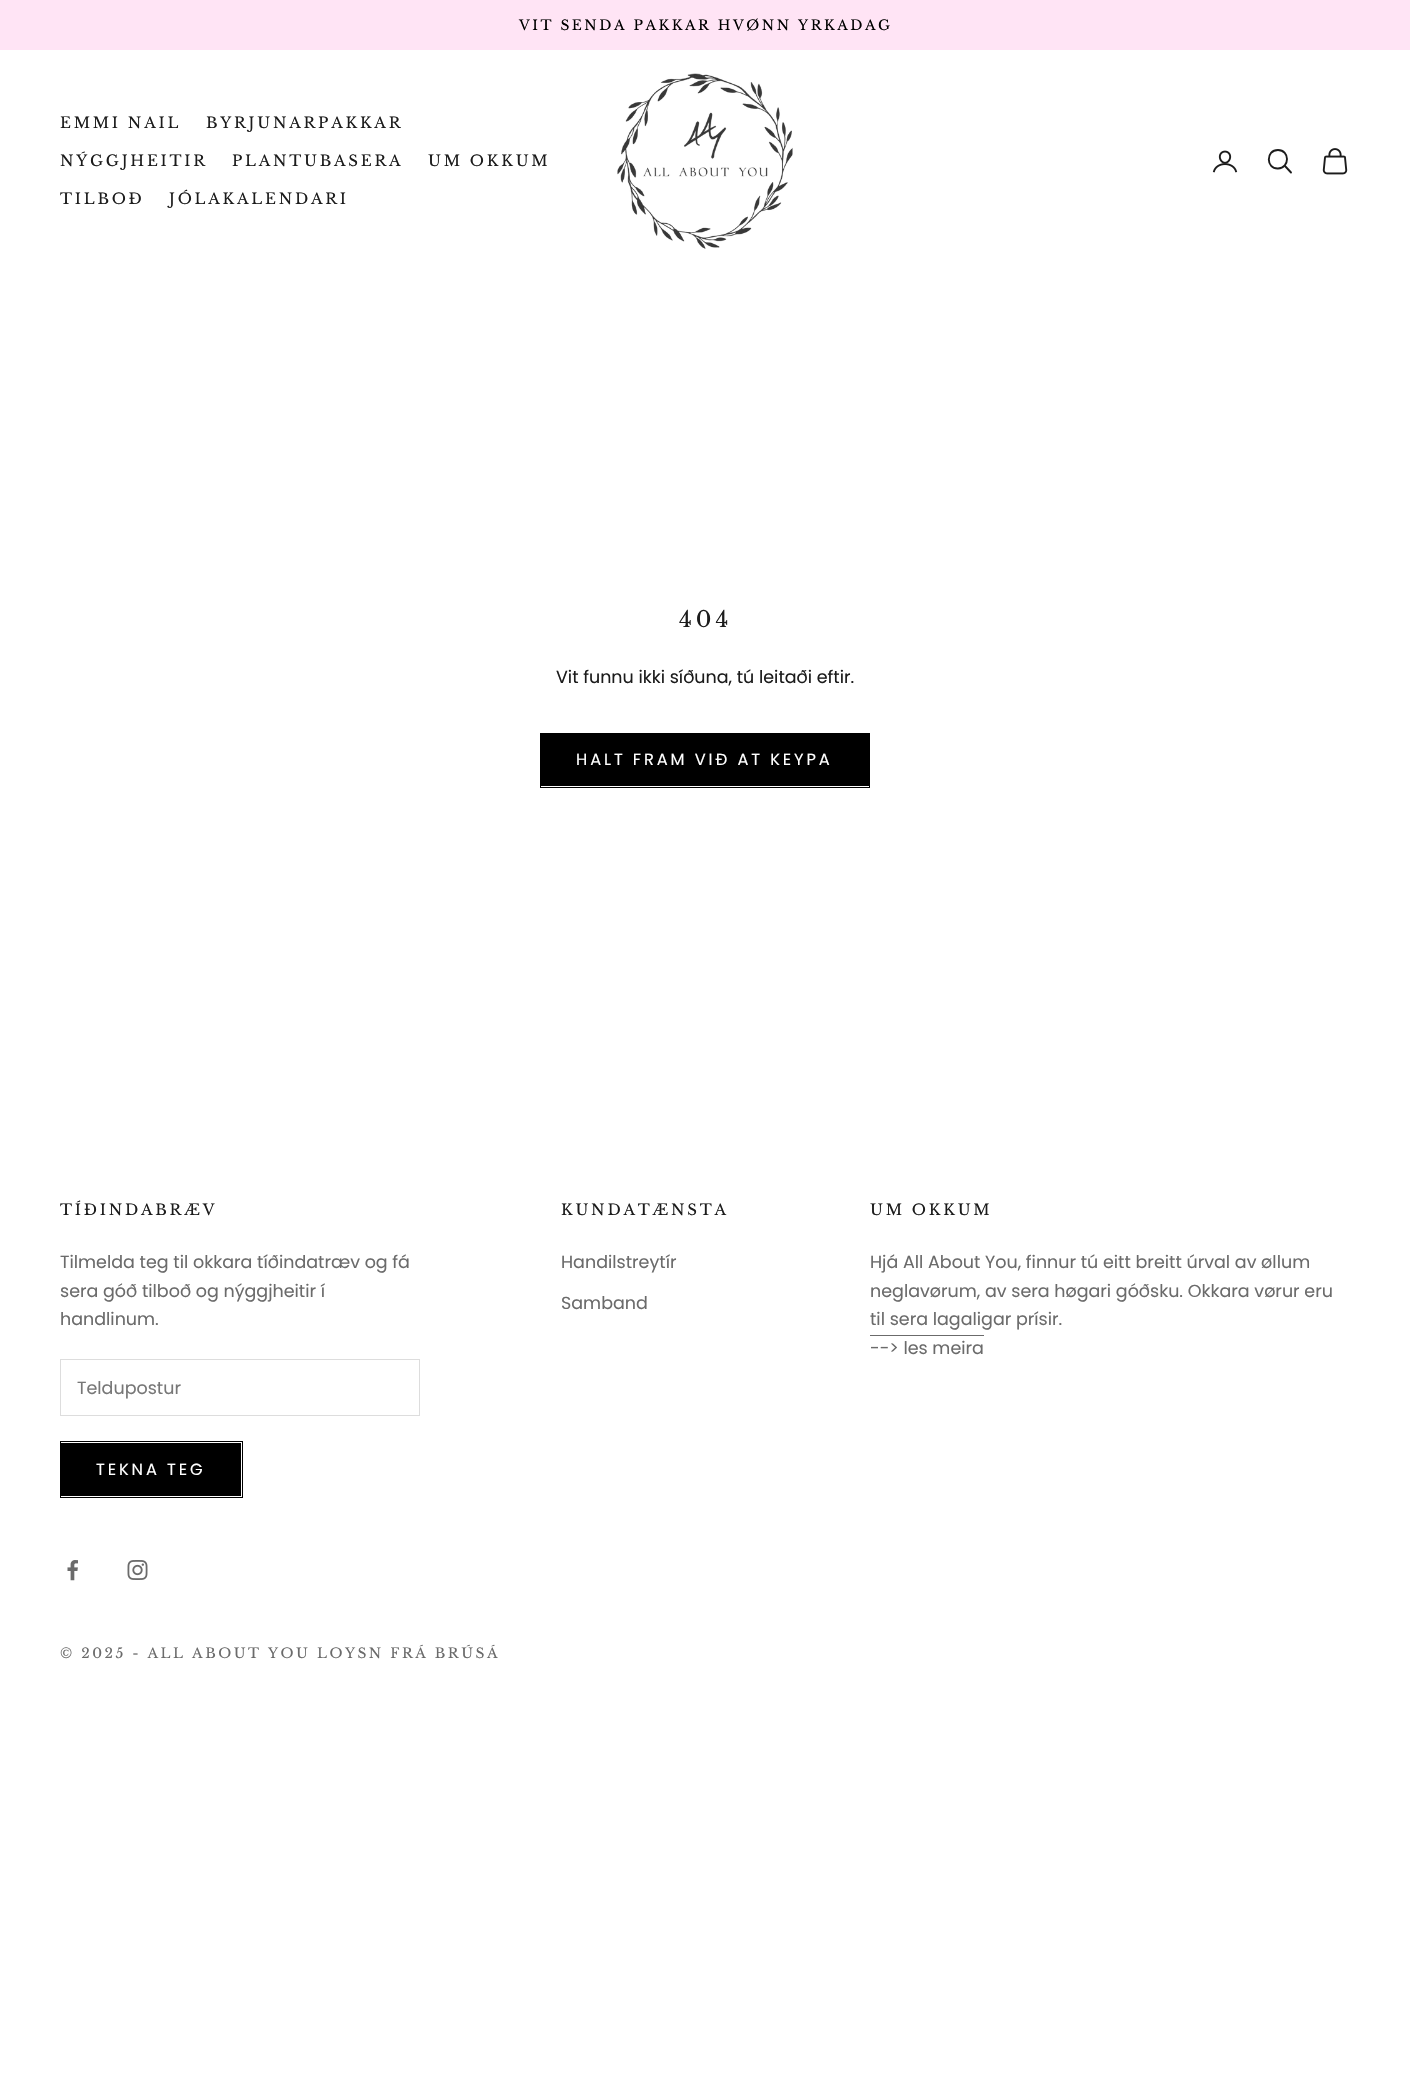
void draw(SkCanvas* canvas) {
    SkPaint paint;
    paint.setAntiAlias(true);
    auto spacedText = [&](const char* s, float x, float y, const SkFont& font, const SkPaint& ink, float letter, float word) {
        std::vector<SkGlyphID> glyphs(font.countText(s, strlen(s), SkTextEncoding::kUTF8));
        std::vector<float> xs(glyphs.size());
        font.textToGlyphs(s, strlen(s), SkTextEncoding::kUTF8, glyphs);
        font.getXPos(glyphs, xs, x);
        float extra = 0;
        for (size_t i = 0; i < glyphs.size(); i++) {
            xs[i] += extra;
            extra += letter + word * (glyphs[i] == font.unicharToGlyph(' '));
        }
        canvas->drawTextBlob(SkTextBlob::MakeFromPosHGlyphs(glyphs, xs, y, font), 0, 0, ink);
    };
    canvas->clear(0xFFFFFFFF);
    paint.setColor(0xFFFFE4F5);
    canvas->drawRect(SkRect::MakeXYWH(0, 0, 1410, 50), paint);
    SkFont font1(fontMgr->matchFamilyStyle("Libre Baskerville", SkFontStyle::Normal()), 13.75f);
    font1.setSubpixel(true);
    paint.setColor(0xFF000000);
    spacedText("VIT SENDA PAKKAR HVØNN YRKADAG", 519, 30, font1, paint, 2.5f, 0);
    SkFont font2(fontMgr->matchFamilyStyle("Libre Baskerville", SkFontStyle::Normal()), 15);
    font2.setSubpixel(true);
    paint.setColor(0xFF1C1C1C);
    spacedText("EMMI NAIL", 60, 128, font2, paint, 2.75f, 0);
    spacedText("BYRJUNARPAKKAR", 206, 128, font2, paint, 2.75f, 0);
    spacedText("NÝGGJHEITIR", 60, 166, font2, paint, 2.75f, 0);
    spacedText("PLANTUBASERA", 232, 166, font2, paint, 2.75f, 0);
    spacedText("UM OKKUM", 428, 166, font2, paint, 2.75f, 0);
    spacedText("TILBOÐ", 60, 204, font2, paint, 2.75f, 0);
    spacedText("JÓLAKALENDARI", 169, 204, font2, paint, 2.75f, 0);
    canvas->drawImageRect(SkImages::DeferredFromEncodedData(SkData::MakeFromFileName("img1.png")), SkRect::MakeXYWH(617, 73, 176, 176), SkSamplingOptions());
    canvas->drawImageRect(SkImages::DeferredFromEncodedData(SkData::MakeFromFileName("img2.png")), SkRect::MakeXYWH(1212, 150, 26, 23), SkSamplingOptions());
    paint.setStyle(SkPaint::kStroke_Style);
    paint.setStrokeWidth(1.9f);
    canvas->drawPath(SkPathBuilder().moveTo(1278, 150).cubicTo(1265.5f, 150, 1266, 169, 1278, 168.5f).cubicTo(1290, 168, 1290, 150, 1278, 150).close().detach(), paint);
    paint.setStrokeCap(SkPaint::kRound_Cap);
    canvas->drawPath(SkPathBuilder().moveTo(1285, 166).lineTo(1291, 172.5f).detach(), paint);
    canvas->drawImageRect(SkImages::DeferredFromEncodedData(SkData::MakeFromFileName("img3.png")), SkRect::MakeXYWH(1322, 148, 26, 27), SkSamplingOptions());
    SkFont font3(fontMgr->matchFamilyStyle("Libre Baskerville", SkFontStyle::Normal()), 22);
    font3.setSubpixel(true);
    paint.setStyle(SkPaint::kFill_Style);
    spacedText("404", 679, 627, font3, paint, 4, 0);
    SkFont font4(fontMgr->matchFamilyStyle("Poppins", SkFontStyle::Normal()), 17.5f);
    font4.setSubpixel(true);
    canvas->drawString("Vit funnu ikki síðuna, tú leitaði eftir.", 556, 683, font4, paint);
    paint.setColor(0xFF000000);
    canvas->drawRect(SkRect::MakeXYWH(541, 734, 328, 52), paint);
    paint.setStyle(SkPaint::kStroke_Style);
    paint.setStrokeWidth(1);
    paint.setStrokeCap(SkPaint::kButt_Cap);
    canvas->drawRect(SkRect::MakeXYWH(540.5f, 733.5f, 329, 54), paint);
    SkFont font5(fontMgr->matchFamilyStyle("Poppins", SkFontStyle::Normal()), 16.25f);
    font5.setSubpixel(true);
    paint.setStyle(SkPaint::kFill_Style);
    paint.setColor(0xFFFFFFFF);
    spacedText("HALT FRAM VIÐ AT KEYPA", 576, 765, font5, paint, 2.9f, 0);
    paint.setColor(0xFF1C1C1C);
    spacedText("TÍÐINDABRÆV", 60, 1215, font2, paint, 2.75f, 0);
    paint.setColor(0xFF6B6B6B);
    canvas->drawString("Tilmelda teg til okkara tíðindatræv og fá", 60, 1268, font4, paint);
    canvas->drawString("sera góð tilboð og nýggjheitir í", 60, 1297, font4, paint);
    canvas->drawString("handlinum.", 60, 1325, font4, paint);
    paint.setStyle(SkPaint::kStroke_Style);
    paint.setColor(0xFFDDDDDD);
    canvas->drawRect(SkRect::MakeXYWH(60.5f, 1359.5f, 359, 56), paint);
    paint.setStyle(SkPaint::kFill_Style);
    paint.setColor(0xFF777777);
    canvas->drawString("Teldupostur", 77, 1394, font4, paint);
    paint.setColor(0xFF000000);
    canvas->drawRect(SkRect::MakeXYWH(61, 1443, 180, 53), paint);
    paint.setStyle(SkPaint::kStroke_Style);
    canvas->drawRect(SkRect::MakeXYWH(60.5f, 1441.5f, 182, 56), paint);
    paint.setStyle(SkPaint::kFill_Style);
    paint.setColor(0xFFFFFFFF);
    spacedText("TEKNA TEG", 96, 1475, font5, paint, 2.9f, 0);
    paint.setColor(0xFF1C1C1C);
    spacedText("KUNDATÆNSTA", 561, 1215, font2, paint, 2.75f, 0);
    paint.setColor(0xFF6B6B6B);
    canvas->drawString("Handilstreytír", 561, 1268, font4, paint);
    canvas->drawString("Samband", 561, 1309, font4, paint);
    paint.setColor(0xFF1C1C1C);
    spacedText("UM OKKUM", 870, 1215, font2, paint, 2.75f, 0);
    paint.setColor(0xFF6B6B6B);
    canvas->drawString("Hjá All About You, finnur tú eitt breitt úrval av øllum", 870, 1268, font4, paint);
    canvas->drawString("neglavørum, av sera høgari góðsku. Okkara vørur eru", 870, 1297, font4, paint);
    canvas->drawString("til sera lagaligar prísir.", 870, 1325, font4, paint);
    canvas->drawString("--> les meira", 870, 1354, font4, paint);
    canvas->drawRect(SkRect::MakeXYWH(870, 1335, 114, 1), paint);
    canvas->drawImageRect(SkImages::DeferredFromEncodedData(SkData::MakeFromFileName("img4.png")), SkRect::MakeXYWH(67, 1560, 11, 21), SkSamplingOptions());
    canvas->drawImageRect(SkImages::DeferredFromEncodedData(SkData::MakeFromFileName("img5.png")), SkRect::MakeXYWH(127, 1560, 21, 20), SkSamplingOptions());
    spacedText("© 2025 - ALL ABOUT YOU LOYSN FRÁ BRÚSÁ", 60, 1658, font1, paint, 2.5f, 0);
}
